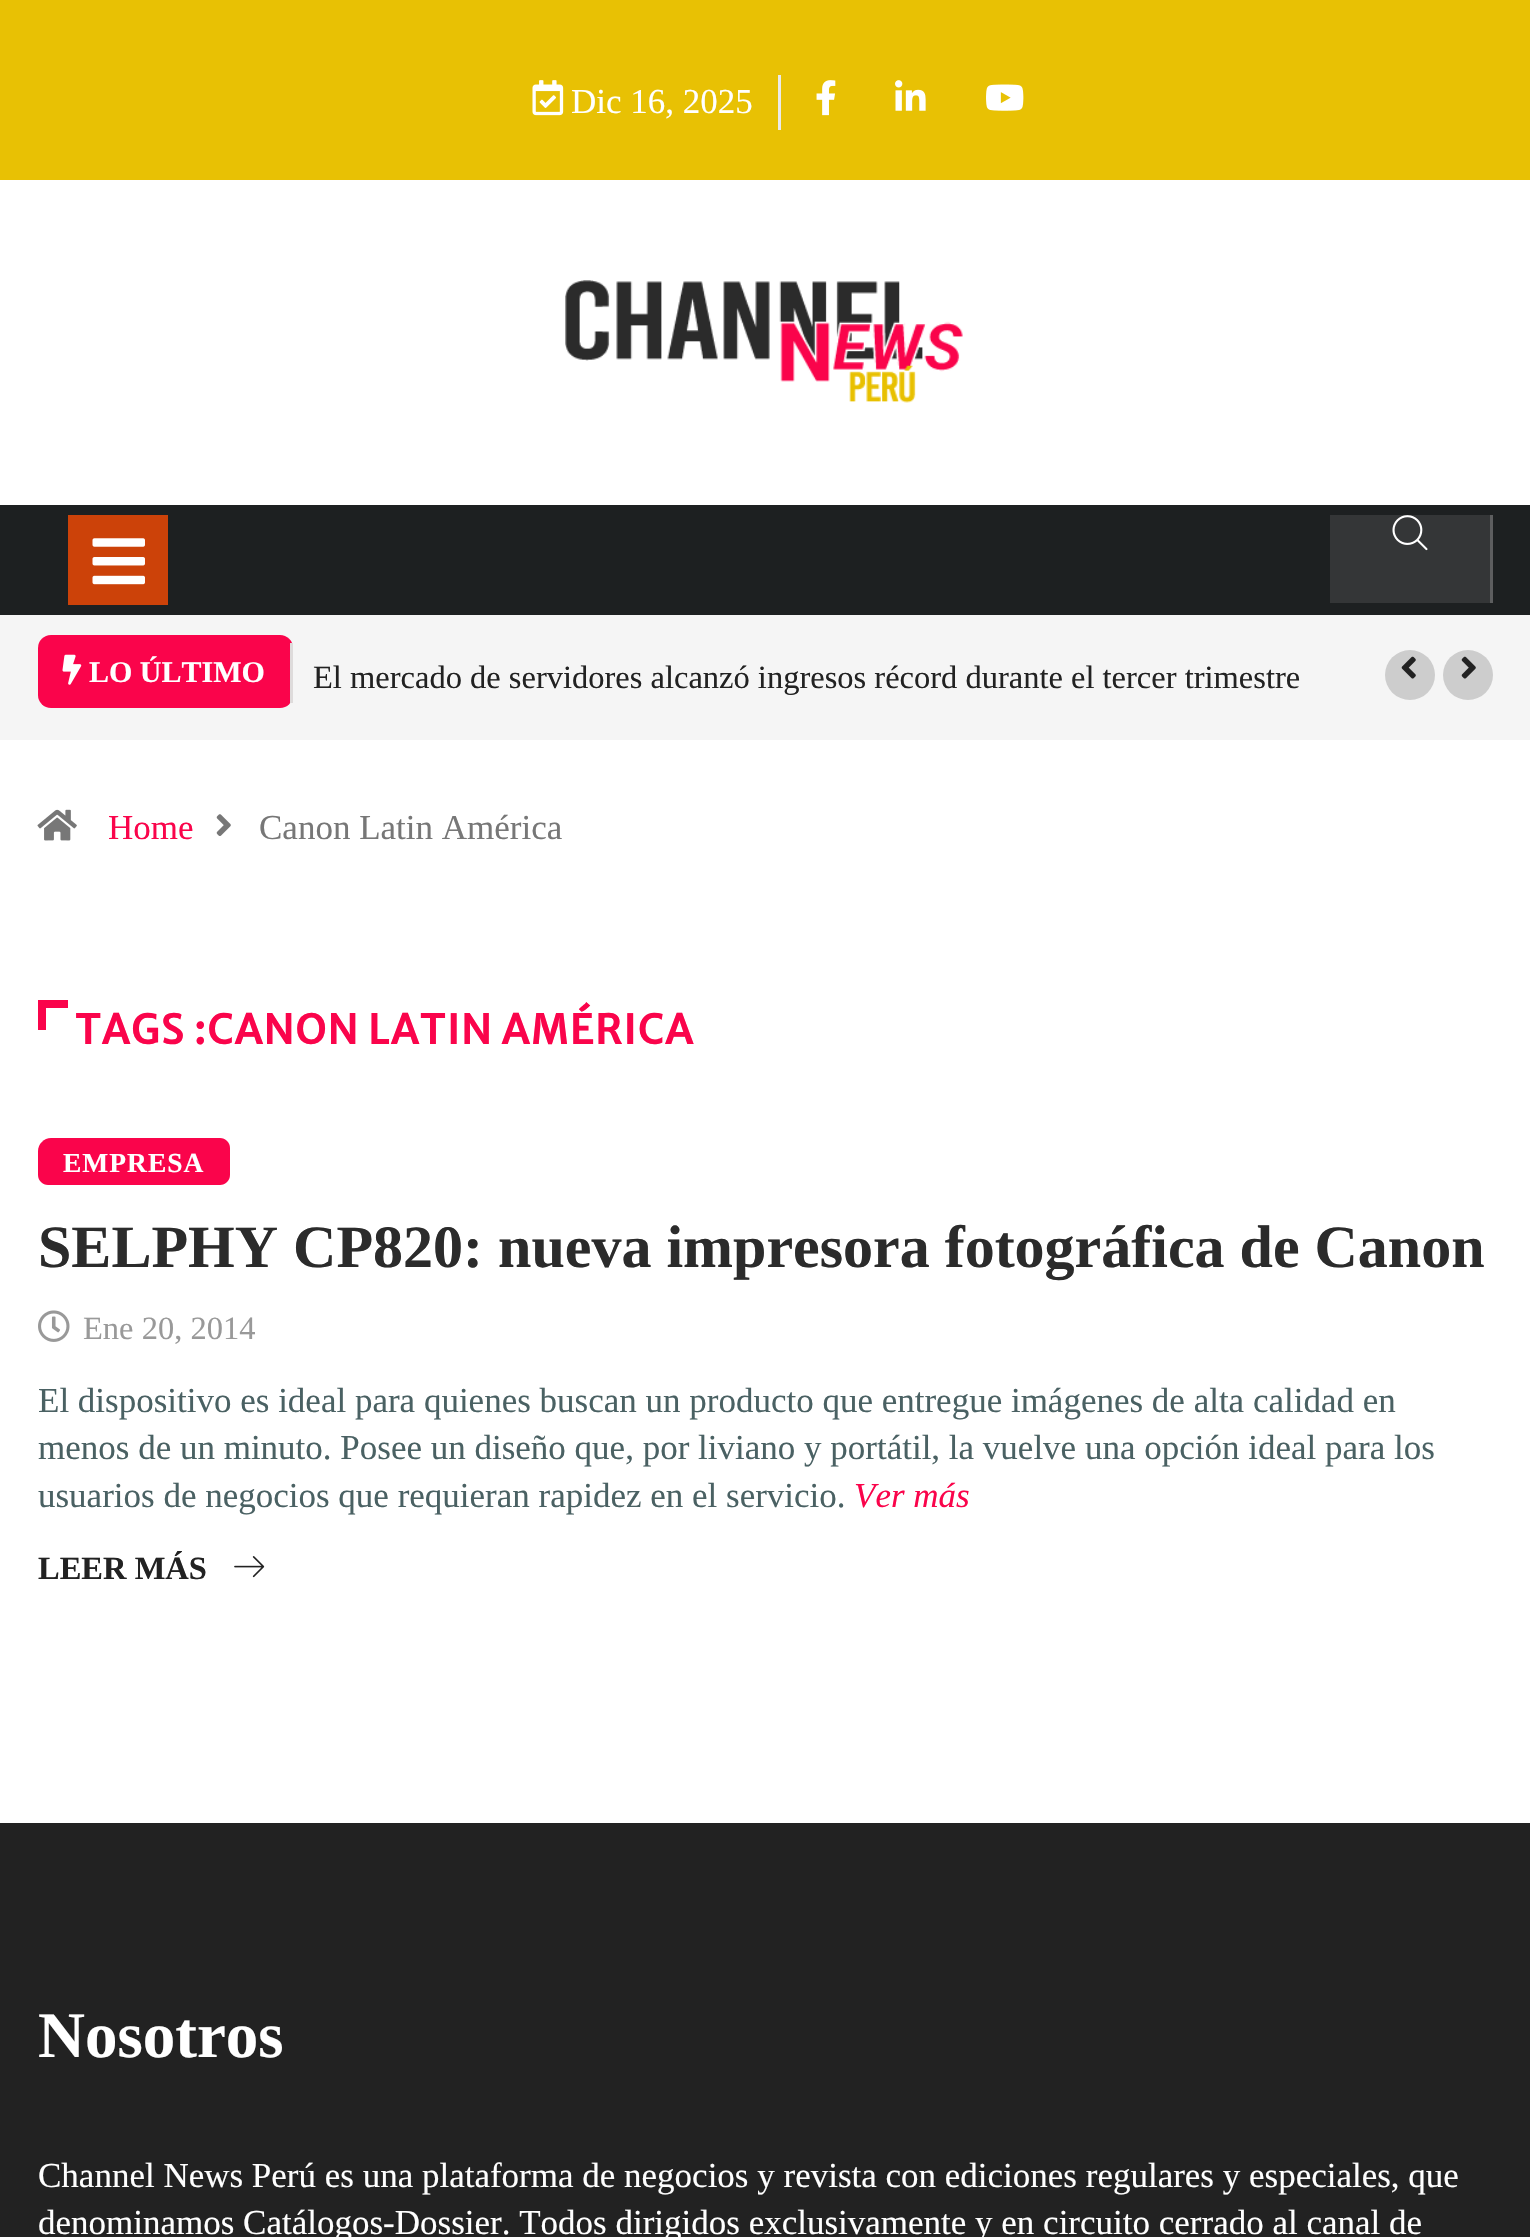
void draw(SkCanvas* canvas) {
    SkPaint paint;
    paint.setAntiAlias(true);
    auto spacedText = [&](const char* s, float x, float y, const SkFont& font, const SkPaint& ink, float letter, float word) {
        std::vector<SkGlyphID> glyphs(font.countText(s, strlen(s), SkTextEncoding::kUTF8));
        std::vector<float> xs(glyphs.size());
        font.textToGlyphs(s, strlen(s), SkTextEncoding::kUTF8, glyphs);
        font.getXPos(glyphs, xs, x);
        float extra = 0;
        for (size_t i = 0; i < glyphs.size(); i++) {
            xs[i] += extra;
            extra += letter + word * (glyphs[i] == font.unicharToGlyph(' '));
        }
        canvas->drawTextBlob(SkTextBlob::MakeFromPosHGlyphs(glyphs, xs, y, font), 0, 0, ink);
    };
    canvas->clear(0xFFFFFFFF);
    paint.setColor(0xFFE8C104);
    canvas->drawRect(SkRect::MakeXYWH(0, 0, 1530, 180), paint);
    paint.setColor(0xFFEAEAEA);
    canvas->drawRect(SkRect::MakeXYWH(778, 75, 3, 55), paint);
    canvas->drawImageRect(SkImages::DeferredFromEncodedData(SkData::MakeFromFileName("img1.png")), SkRect::MakeXYWH(532, 80, 32, 36), SkSamplingOptions());
    SkFont font1(fontMgr->matchFamilyStyle("Liberation Serif", SkFontStyle::Normal()), 35);
    font1.setSubpixel(true);
    paint.setColor(0xFFFFFFFF);
    canvas->drawString("Dic 16, 2025", 571, 113, font1, paint);
    canvas->drawImageRect(SkImages::DeferredFromEncodedData(SkData::MakeFromFileName("img2.png")), SkRect::MakeXYWH(816, 80, 20, 36), SkSamplingOptions());
    canvas->drawImageRect(SkImages::DeferredFromEncodedData(SkData::MakeFromFileName("img3.png")), SkRect::MakeXYWH(895, 80, 31, 31), SkSamplingOptions());
    canvas->drawImageRect(SkImages::DeferredFromEncodedData(SkData::MakeFromFileName("img4.png")), SkRect::MakeXYWH(986, 84, 38, 27), SkSamplingOptions());
    canvas->drawImageRect(SkImages::DeferredFromEncodedData(SkData::MakeFromFileName("img5.png")), SkRect::MakeXYWH(565, 280, 398, 123), SkSamplingOptions());
    paint.setColor(0xFF1D2021);
    canvas->drawRect(SkRect::MakeXYWH(0, 505, 1530, 110), paint);
    paint.setColor(0xFFCC4209);
    canvas->drawRect(SkRect::MakeXYWH(68, 515, 100, 90), paint);
    canvas->drawImageRect(SkImages::DeferredFromEncodedData(SkData::MakeFromFileName("img6.png")), SkRect::MakeXYWH(92, 538, 53, 47), SkSamplingOptions());
    paint.setColor(0xFF343637);
    canvas->drawRect(SkRect::MakeXYWH(1330, 515, 160, 88), paint);
    paint.setColor(0xFF5D5E5F);
    canvas->drawRect(SkRect::MakeXYWH(1490, 515, 3, 88), paint);
    canvas->drawImageRect(SkImages::DeferredFromEncodedData(SkData::MakeFromFileName("img7.png")), SkRect::MakeXYWH(1392, 515, 36, 36), SkSamplingOptions());
    paint.setColor(0xFFF5F5F5);
    canvas->drawRect(SkRect::MakeXYWH(0, 615, 1530, 125), paint);
    paint.setColor(0xFFFA044B);
    canvas->drawRoundRect(SkRect::MakeXYWH(38, 635, 255, 73), 13, 13, paint);
    paint.setColor(0xFFDEDBDB);
    canvas->drawRect(SkRect::MakeXYWH(290, 643, 3, 60), paint);
    canvas->drawImageRect(SkImages::DeferredFromEncodedData(SkData::MakeFromFileName("img8.png")), SkRect::MakeXYWH(62, 654, 20, 31), SkSamplingOptions());
    SkFont font2(fontMgr->matchFamilyStyle("Liberation Serif", SkFontStyle::Bold()), 30);
    font2.setSubpixel(true);
    paint.setColor(0xFFFFFFFF);
    canvas->drawString("LO ÚLTIMO", 89, 682, font2, paint);
    SkFont font3(fontMgr->matchFamilyStyle("Liberation Serif", SkFontStyle::Normal()), 32.5f);
    font3.setSubpixel(true);
    paint.setColor(0xFF222222);
    canvas->drawString("El mercado de servidores alcanzó ingresos récord durante el tercer trimestre", 313, 688, font3, paint);
    paint.setColor(0xFFCDCDCD);
    canvas->drawCircle(1410, 675, 25, paint);
    canvas->drawImageRect(SkImages::DeferredFromEncodedData(SkData::MakeFromFileName("img9.png")), SkRect::MakeXYWH(1401, 656, 15, 23), SkSamplingOptions());
    canvas->drawCircle(1468, 675, 25, paint);
    canvas->drawImageRect(SkImages::DeferredFromEncodedData(SkData::MakeFromFileName("img10.png")), SkRect::MakeXYWH(1461, 656, 15, 23), SkSamplingOptions());
    canvas->drawImageRect(SkImages::DeferredFromEncodedData(SkData::MakeFromFileName("img11.png")), SkRect::MakeXYWH(37, 809, 40, 32), SkSamplingOptions());
    paint.setColor(0xFFFA044B);
    canvas->drawString("Home", 108, 839, font1, paint);
    canvas->drawImageRect(SkImages::DeferredFromEncodedData(SkData::MakeFromFileName("img12.png")), SkRect::MakeXYWH(216, 814, 15, 22), SkSamplingOptions());
    paint.setColor(0xFF777777);
    canvas->drawString("Canon Latin América", 259, 839, font1, paint);
    paint.setColor(0xFFFA044B);
    canvas->drawRect(SkRect::MakeXYWH(38, 1000, 8, 30), paint);
    canvas->drawRect(SkRect::MakeXYWH(38, 1000, 30, 8), paint);
    SkFont font4(fontMgr->matchFamilyStyle("Merriweather Sans", SkFontStyle::Bold()), 40);
    font4.setSubpixel(true);
    spacedText("TAGS :CANON LATIN AMÉRICA", 75, 1044, font4, paint, 1.6f, 0);
    canvas->drawPath(SkPathBuilder().moveTo(51, 1138).lineTo(220, 1138).cubicTo(225.5f, 1138, 230, 1142.5f, 230, 1148).lineTo(230, 1175).cubicTo(230, 1180.5f, 225.5f, 1185, 220, 1185).lineTo(48, 1185).cubicTo(42.5f, 1185, 38, 1180.5f, 38, 1175).lineTo(38, 1151).cubicTo(38, 1144, 44, 1138, 51, 1138).close().detach(), paint);
    SkFont font5(fontMgr->matchFamilyStyle("Liberation Serif", SkFontStyle::Bold()), 27.5f);
    font5.setSubpixel(true);
    paint.setColor(0xFFFFFFFF);
    spacedText("EMPRESA", 63, 1172, font5, paint, 1, 0);
    SkFont font6(fontMgr->matchFamilyStyle("Liberation Serif", SkFontStyle::Bold()), 60);
    font6.setSubpixel(true);
    paint.setColor(0xFF2B2B2B);
    canvas->drawString("SELPHY CP820: nueva impresora fotográfica de Canon", 38, 1267, font6, paint);
    canvas->drawImageRect(SkImages::DeferredFromEncodedData(SkData::MakeFromFileName("img13.png")), SkRect::MakeXYWH(38, 1310, 32, 32), SkSamplingOptions());
    paint.setColor(0xFF999999);
    canvas->drawString("Ene 20, 2014", 83, 1339, font3, paint);
    paint.setColor(0xFF4A6163);
    canvas->drawString("El dispositivo es ideal para quienes buscan un producto que entregue imágenes de alta calidad en", 38, 1412, font1, paint);
    canvas->drawString("menos de un minuto. Posee un diseño que, por liviano y portátil, la vuelve una opción ideal para los", 38, 1459, font1, paint);
    canvas->drawString("usuarios de negocios que requieran rapidez en el servicio.", 38, 1507, font1, paint);
    SkFont font7(fontMgr->matchFamilyStyle("Liberation Serif", SkFontStyle::Italic()), 35);
    font7.setSubpixel(true);
    paint.setColor(0xFFFA044B);
    canvas->drawString("Ver más", 854, 1507, font7, paint);
    SkFont font8(fontMgr->matchFamilyStyle("Liberation Serif", SkFontStyle::Bold()), 32.5f);
    font8.setSubpixel(true);
    paint.setColor(0xFF222222);
    canvas->drawString("LEER MÁS", 38, 1579, font8, paint);
    canvas->drawImageRect(SkImages::DeferredFromEncodedData(SkData::MakeFromFileName("img14.png")), SkRect::MakeXYWH(234, 1556, 31, 22), SkSamplingOptions());
    canvas->drawRect(SkRect::MakeXYWH(0, 1823, 1530, 414), paint);
    SkFont font9(fontMgr->matchFamilyStyle("Liberation Serif", SkFontStyle::Bold()), 65);
    font9.setSubpixel(true);
    paint.setColor(0xFFFFFFFF);
    canvas->drawString("Nosotros", 38, 2057, font9, paint);
    canvas->drawString("Channel News Perú es una plataforma de negocios y revista con ediciones regulares y especiales, que", 38, 2187, font1, paint);
    canvas->drawString("denominamos Catálogos-Dossier. Todos dirigidos exclusivamente y en circuito cerrado al canal de", 38, 2234, font1, paint);
}
